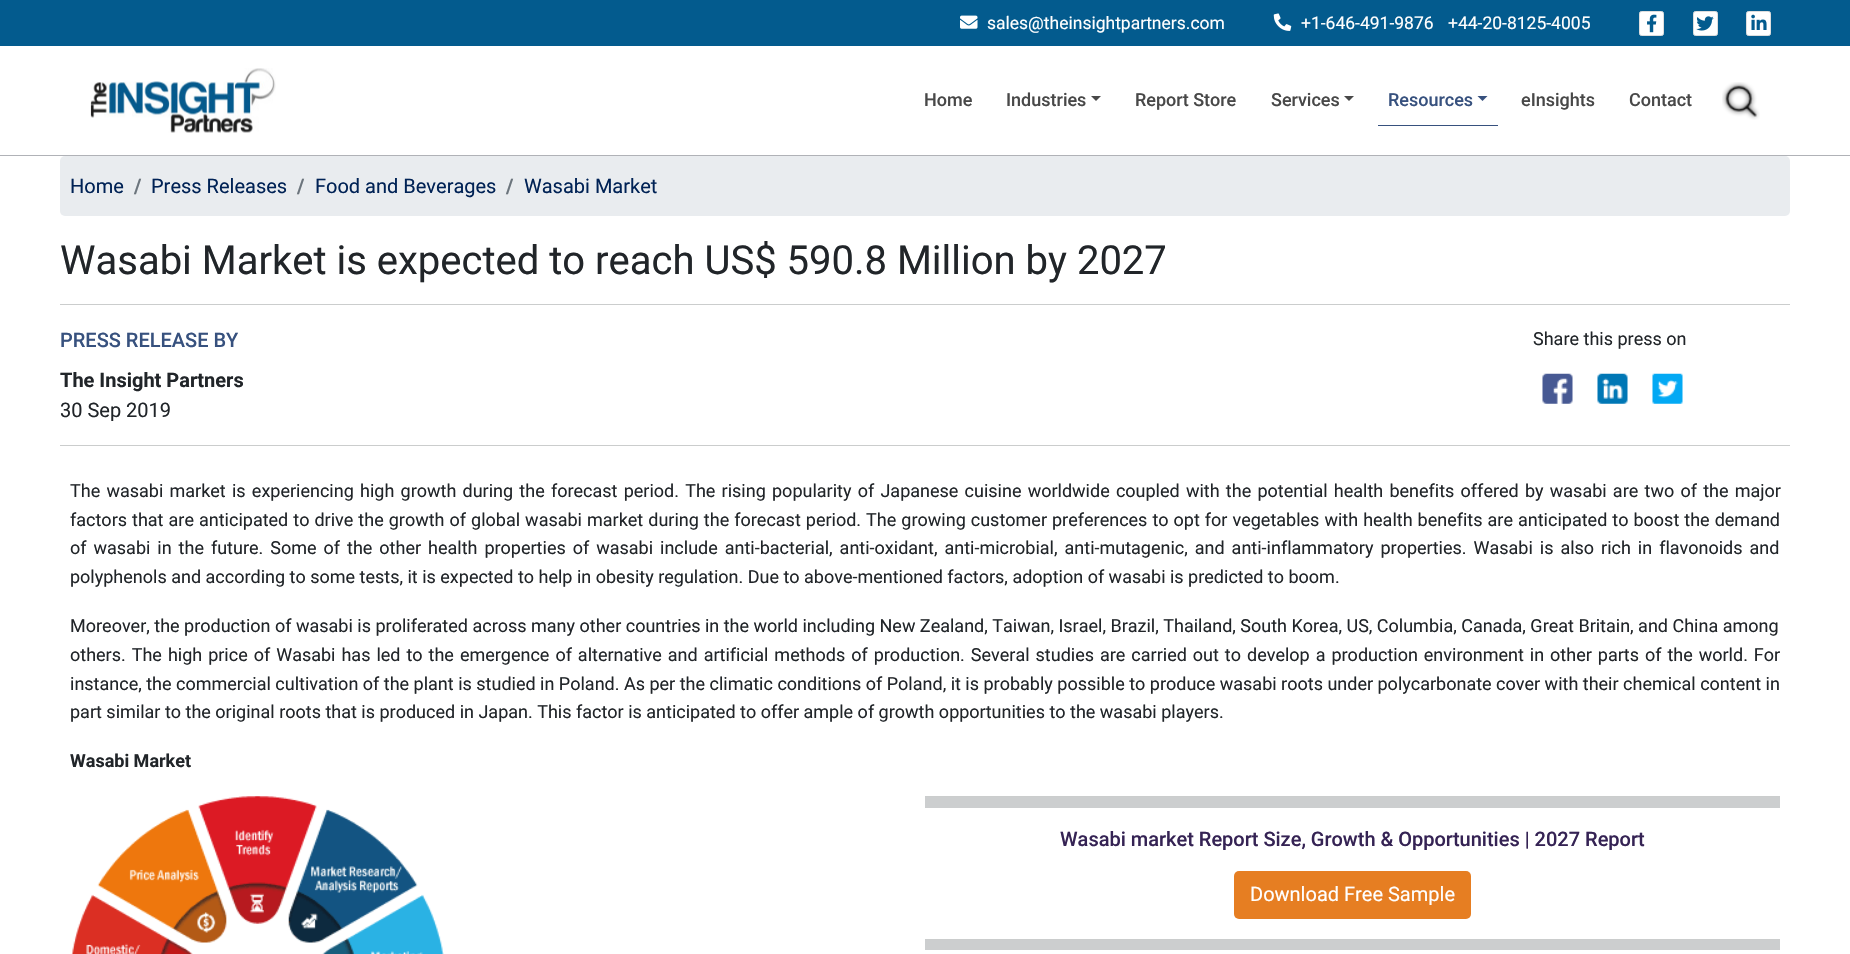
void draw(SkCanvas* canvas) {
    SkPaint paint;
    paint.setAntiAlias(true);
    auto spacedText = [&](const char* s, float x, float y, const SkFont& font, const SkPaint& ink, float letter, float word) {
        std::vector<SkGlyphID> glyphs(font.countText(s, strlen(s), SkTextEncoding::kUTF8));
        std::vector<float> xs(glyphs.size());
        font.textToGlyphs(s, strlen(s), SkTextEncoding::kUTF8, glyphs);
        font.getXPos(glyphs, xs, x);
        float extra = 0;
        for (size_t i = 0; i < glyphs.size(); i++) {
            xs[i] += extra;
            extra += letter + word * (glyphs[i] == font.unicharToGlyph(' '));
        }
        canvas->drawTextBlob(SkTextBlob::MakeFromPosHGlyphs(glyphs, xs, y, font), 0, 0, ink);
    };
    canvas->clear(0xFFFFFFFF);
    paint.setColor(0xFF035B8E);
    canvas->drawRect(SkRect::MakeXYWH(0, 0, 1850, 46), paint);
    canvas->drawImageRect(SkImages::DeferredFromEncodedData(SkData::MakeFromFileName("img1.png")), SkRect::MakeXYWH(960, 15, 18, 14), SkSamplingOptions());
    SkFont font1(fontMgr->matchFamilyStyle("Roboto", SkFontStyle::Normal()), 17.5f);
    font1.setSubpixel(true);
    paint.setColor(0xFFFFFFFF);
    canvas->drawString("sales@theinsightpartners.com", 987, 29, font1, paint);
    canvas->drawImageRect(SkImages::DeferredFromEncodedData(SkData::MakeFromFileName("img2.png")), SkRect::MakeXYWH(1273, 13, 19, 18), SkSamplingOptions());
    canvas->drawString("+1-646-491-9876", 1301, 29, font1, paint);
    canvas->drawString("+44-20-8125-4005", 1448, 29, font1, paint);
    canvas->drawRoundRect(SkRect::MakeXYWH(1639.5f, 11.5f, 24, 24), 2, 2, paint);
    paint.setStyle(SkPaint::kStroke_Style);
    paint.setStrokeWidth(1);
    paint.setColor(0xFFDDDDDD);
    canvas->drawRoundRect(SkRect::MakeXYWH(1639.5f, 11.5f, 24, 24), 2, 2, paint);
    canvas->drawImageRect(SkImages::DeferredFromEncodedData(SkData::MakeFromFileName("img3.png")), SkRect::MakeXYWH(1647, 14, 10, 19), SkSamplingOptions());
    paint.setStyle(SkPaint::kFill_Style);
    paint.setColor(0xFFFFFFFF);
    canvas->drawRoundRect(SkRect::MakeXYWH(1693.5f, 11.5f, 24, 24), 2, 2, paint);
    paint.setStyle(SkPaint::kStroke_Style);
    paint.setColor(0xFFDDDDDD);
    canvas->drawRoundRect(SkRect::MakeXYWH(1693.5f, 11.5f, 24, 24), 2, 2, paint);
    canvas->drawImageRect(SkImages::DeferredFromEncodedData(SkData::MakeFromFileName("img4.png")), SkRect::MakeXYWH(1696, 16, 18, 15), SkSamplingOptions());
    paint.setStyle(SkPaint::kFill_Style);
    paint.setColor(0xFFFFFFFF);
    canvas->drawRoundRect(SkRect::MakeXYWH(1746.5f, 11.5f, 24, 24), 2, 2, paint);
    paint.setStyle(SkPaint::kStroke_Style);
    paint.setColor(0xFFDDDDDD);
    canvas->drawRoundRect(SkRect::MakeXYWH(1746.5f, 11.5f, 24, 24), 2, 2, paint);
    canvas->drawImageRect(SkImages::DeferredFromEncodedData(SkData::MakeFromFileName("img5.png")), SkRect::MakeXYWH(1751, 14, 16, 16), SkSamplingOptions());
    paint.setStyle(SkPaint::kFill_Style);
    paint.setColor(0xFFB0B2B7);
    canvas->drawRect(SkRect::MakeXYWH(0, 155, 1850, 1), paint);
    canvas->drawImageRect(SkImages::DeferredFromEncodedData(SkData::MakeFromFileName("img6.png")), SkRect::MakeXYWH(90, 68, 186, 65), SkSamplingOptions());
    SkFont font2(fontMgr->matchFamilyStyle("Roboto", SkFontStyle(500, SkFontStyle::kNormal_Width, SkFontStyle::kUpright_Slant)), 18);
    font2.setSubpixel(true);
    paint.setColor(0xFF484848);
    canvas->drawString("Home", 924, 106, font2, paint);
    canvas->drawString("Industries", 1006, 106, font2, paint);
    canvas->drawPath(SkPathBuilder().moveTo(1091, 96).lineTo(1101, 96).lineTo(1096, 101).close().detach(), paint);
    canvas->drawString("Report Store", 1135, 106, font2, paint);
    canvas->drawString("Services", 1271, 106, font2, paint);
    canvas->drawPath(SkPathBuilder().moveTo(1344, 96).lineTo(1354, 96).lineTo(1349, 101).close().detach(), paint);
    paint.setColor(0xFF37517E);
    canvas->drawRect(SkRect::MakeXYWH(1378, 125, 120, 1), paint);
    canvas->drawString("Resources", 1388, 106, font2, paint);
    canvas->drawPath(SkPathBuilder().moveTo(1477.5f, 96).lineTo(1487.5f, 96).lineTo(1482.5f, 101).close().detach(), paint);
    paint.setColor(0xFF484848);
    canvas->drawString("eInsights", 1521, 106, font2, paint);
    canvas->drawString("Contact", 1629, 106, font2, paint);
    canvas->drawImageRect(SkImages::DeferredFromEncodedData(SkData::MakeFromFileName("img7.png")), SkRect::MakeXYWH(1722, 82, 38, 38), SkSamplingOptions());
    paint.setColor(0xFFE9ECEF);
    canvas->drawRoundRect(SkRect::MakeXYWH(60, 156, 1730, 60), 5, 5, paint);
    SkFont font3(fontMgr->matchFamilyStyle("Roboto", SkFontStyle::Normal()), 20);
    font3.setSubpixel(true);
    paint.setColor(0xFF002255);
    canvas->drawString("Home", 70, 193, font3, paint);
    SkFont font4(fontMgr->matchFamilyStyle("Roboto", SkFontStyle::Bold()), 20);
    font4.setSubpixel(true);
    paint.setColor(0xFF6C757D);
    canvas->drawString("/", 134, 193, font4, paint);
    paint.setColor(0xFF002255);
    canvas->drawString("Press Releases", 151, 193, font3, paint);
    paint.setColor(0xFF6C757D);
    canvas->drawString("/", 297, 193, font4, paint);
    paint.setColor(0xFF002255);
    canvas->drawString("Food and Beverages", 315, 193, font3, paint);
    paint.setColor(0xFF6C757D);
    canvas->drawString("/", 506, 193, font4, paint);
    paint.setColor(0xFF002255);
    canvas->drawString("Wasabi Market", 524, 193, font3, paint);
    SkFont font5(fontMgr->matchFamilyStyle("Roboto", SkFontStyle::Normal()), 40);
    font5.setSubpixel(true);
    paint.setColor(0xFF212529);
    canvas->drawString("Wasabi Market is expected to reach US$ 590.8 Million by 2027", 60, 274, font5, paint);
    paint.setColor(0xFFCBCDCD);
    canvas->drawRect(SkRect::MakeXYWH(60, 304, 1730, 1), paint);
    SkFont font6(fontMgr->matchFamilyStyle("Roboto", SkFontStyle(500, SkFontStyle::kNormal_Width, SkFontStyle::kUpright_Slant)), 20);
    font6.setSubpixel(true);
    paint.setColor(0xFF37517E);
    canvas->drawString("PRESS RELEASE BY", 60, 347, font6, paint);
    paint.setColor(0xFF212529);
    canvas->drawString("The Insight Partners", 60, 387, font4, paint);
    canvas->drawString("30 Sep 2019", 60, 417, font3, paint);
    SkFont font7(fontMgr->matchFamilyStyle("Roboto", SkFontStyle::Normal()), 18);
    font7.setSubpixel(true);
    canvas->drawString("Share this press on", 1533, 345, font7, paint);
    canvas->drawImageRect(SkImages::DeferredFromEncodedData(SkData::MakeFromFileName("img8.png")), SkRect::MakeXYWH(1542, 373, 31, 31), SkSamplingOptions());
    canvas->drawImageRect(SkImages::DeferredFromEncodedData(SkData::MakeFromFileName("img9.png")), SkRect::MakeXYWH(1597, 373, 31, 31), SkSamplingOptions());
    canvas->drawImageRect(SkImages::DeferredFromEncodedData(SkData::MakeFromFileName("img10.png")), SkRect::MakeXYWH(1652, 373, 31, 31), SkSamplingOptions());
    paint.setColor(0xFFCBCDCD);
    canvas->drawRect(SkRect::MakeXYWH(60, 445, 1730, 1), paint);
    paint.setColor(0xFF212529);
    spacedText("The wasabi market is experiencing high growth during the forecast period. The rising popularity of Japanese cuisine worldwide coupled with the potential health benefits offered by wasabi are two of the major", 70, 497, font7, paint, 0, 1.75f);
    spacedText("factors that are anticipated to drive the growth of global wasabi market during the forecast period. The growing customer preferences to opt for vegetables with health benefits are anticipated to boost the demand", 70, 526, font7, paint, 0, 0.55f);
    spacedText("of wasabi in the future. Some of the other health properties of wasabi include anti-bacterial, anti-oxidant, anti-microbial, anti-mutagenic, and anti-inflammatory properties. Wasabi is also rich in flavonoids and", 70, 554, font7, paint, 0, 2.5f);
    canvas->drawString("polyphenols and according to some tests, it is expected to help in obesity regulation. Due to above-mentioned factors, adoption of wasabi is predicted to boom.", 70, 583, font7, paint);
    canvas->drawString("Moreover, the production of wasabi is proliferated across many other countries in the world including New Zealand, Taiwan, Israel, Brazil, Thailand, South Korea, US, Columbia, Canada, Great Britain, and China among", 70, 632, font7, paint);
    spacedText("others. The high price of Wasabi has led to the emergence of alternative and artificial methods of production. Several studies are carried out to develop a production environment in other parts of the world. For", 70, 661, font7, paint, 0, 1.5f);
    canvas->drawString("instance, the commercial cultivation of the plant is studied in Poland. As per the climatic conditions of Poland, it is probably possible to produce wasabi roots under polycarbonate cover with their chemical content in", 70, 690, font7, paint);
    canvas->drawString("part similar to the original roots that is produced in Japan. This factor is anticipated to offer ample of growth opportunities to the wasabi players.", 70, 718, font7, paint);
    SkFont font8(fontMgr->matchFamilyStyle("Roboto", SkFontStyle::Bold()), 18);
    font8.setSubpixel(true);
    canvas->drawString("Wasabi Market", 70, 767, font8, paint);
    canvas->drawImageRect(SkImages::DeferredFromEncodedData(SkData::MakeFromFileName("img11.png")), SkRect::MakeXYWH(71, 796, 373, 158), SkSamplingOptions());
    paint.setColor(0xFFCCCECF);
    canvas->drawRect(SkRect::MakeXYWH(925, 797, 855, 11), paint);
    paint.setColor(0xFFCBCDCD);
    canvas->drawRect(SkRect::MakeXYWH(925, 796, 855, 1), paint);
    paint.setColor(0xFF352354);
    canvas->drawString("Wasabi market Report Size, Growth & Opportunities | 2027 Report", 1060, 846, font6, paint);
    paint.setColor(0xFFE67E22);
    canvas->drawRoundRect(SkRect::MakeXYWH(1234, 871, 237, 48), 5, 5, paint);
    paint.setColor(0xFFFFFFFF);
    canvas->drawString("Download Free Sample", 1250, 901, font3, paint);
    paint.setColor(0xFFCCCECF);
    canvas->drawRect(SkRect::MakeXYWH(925, 940, 855, 10), paint);
    paint.setColor(0xFFCBCDCD);
    canvas->drawRect(SkRect::MakeXYWH(925, 939, 855, 1), paint);
}
